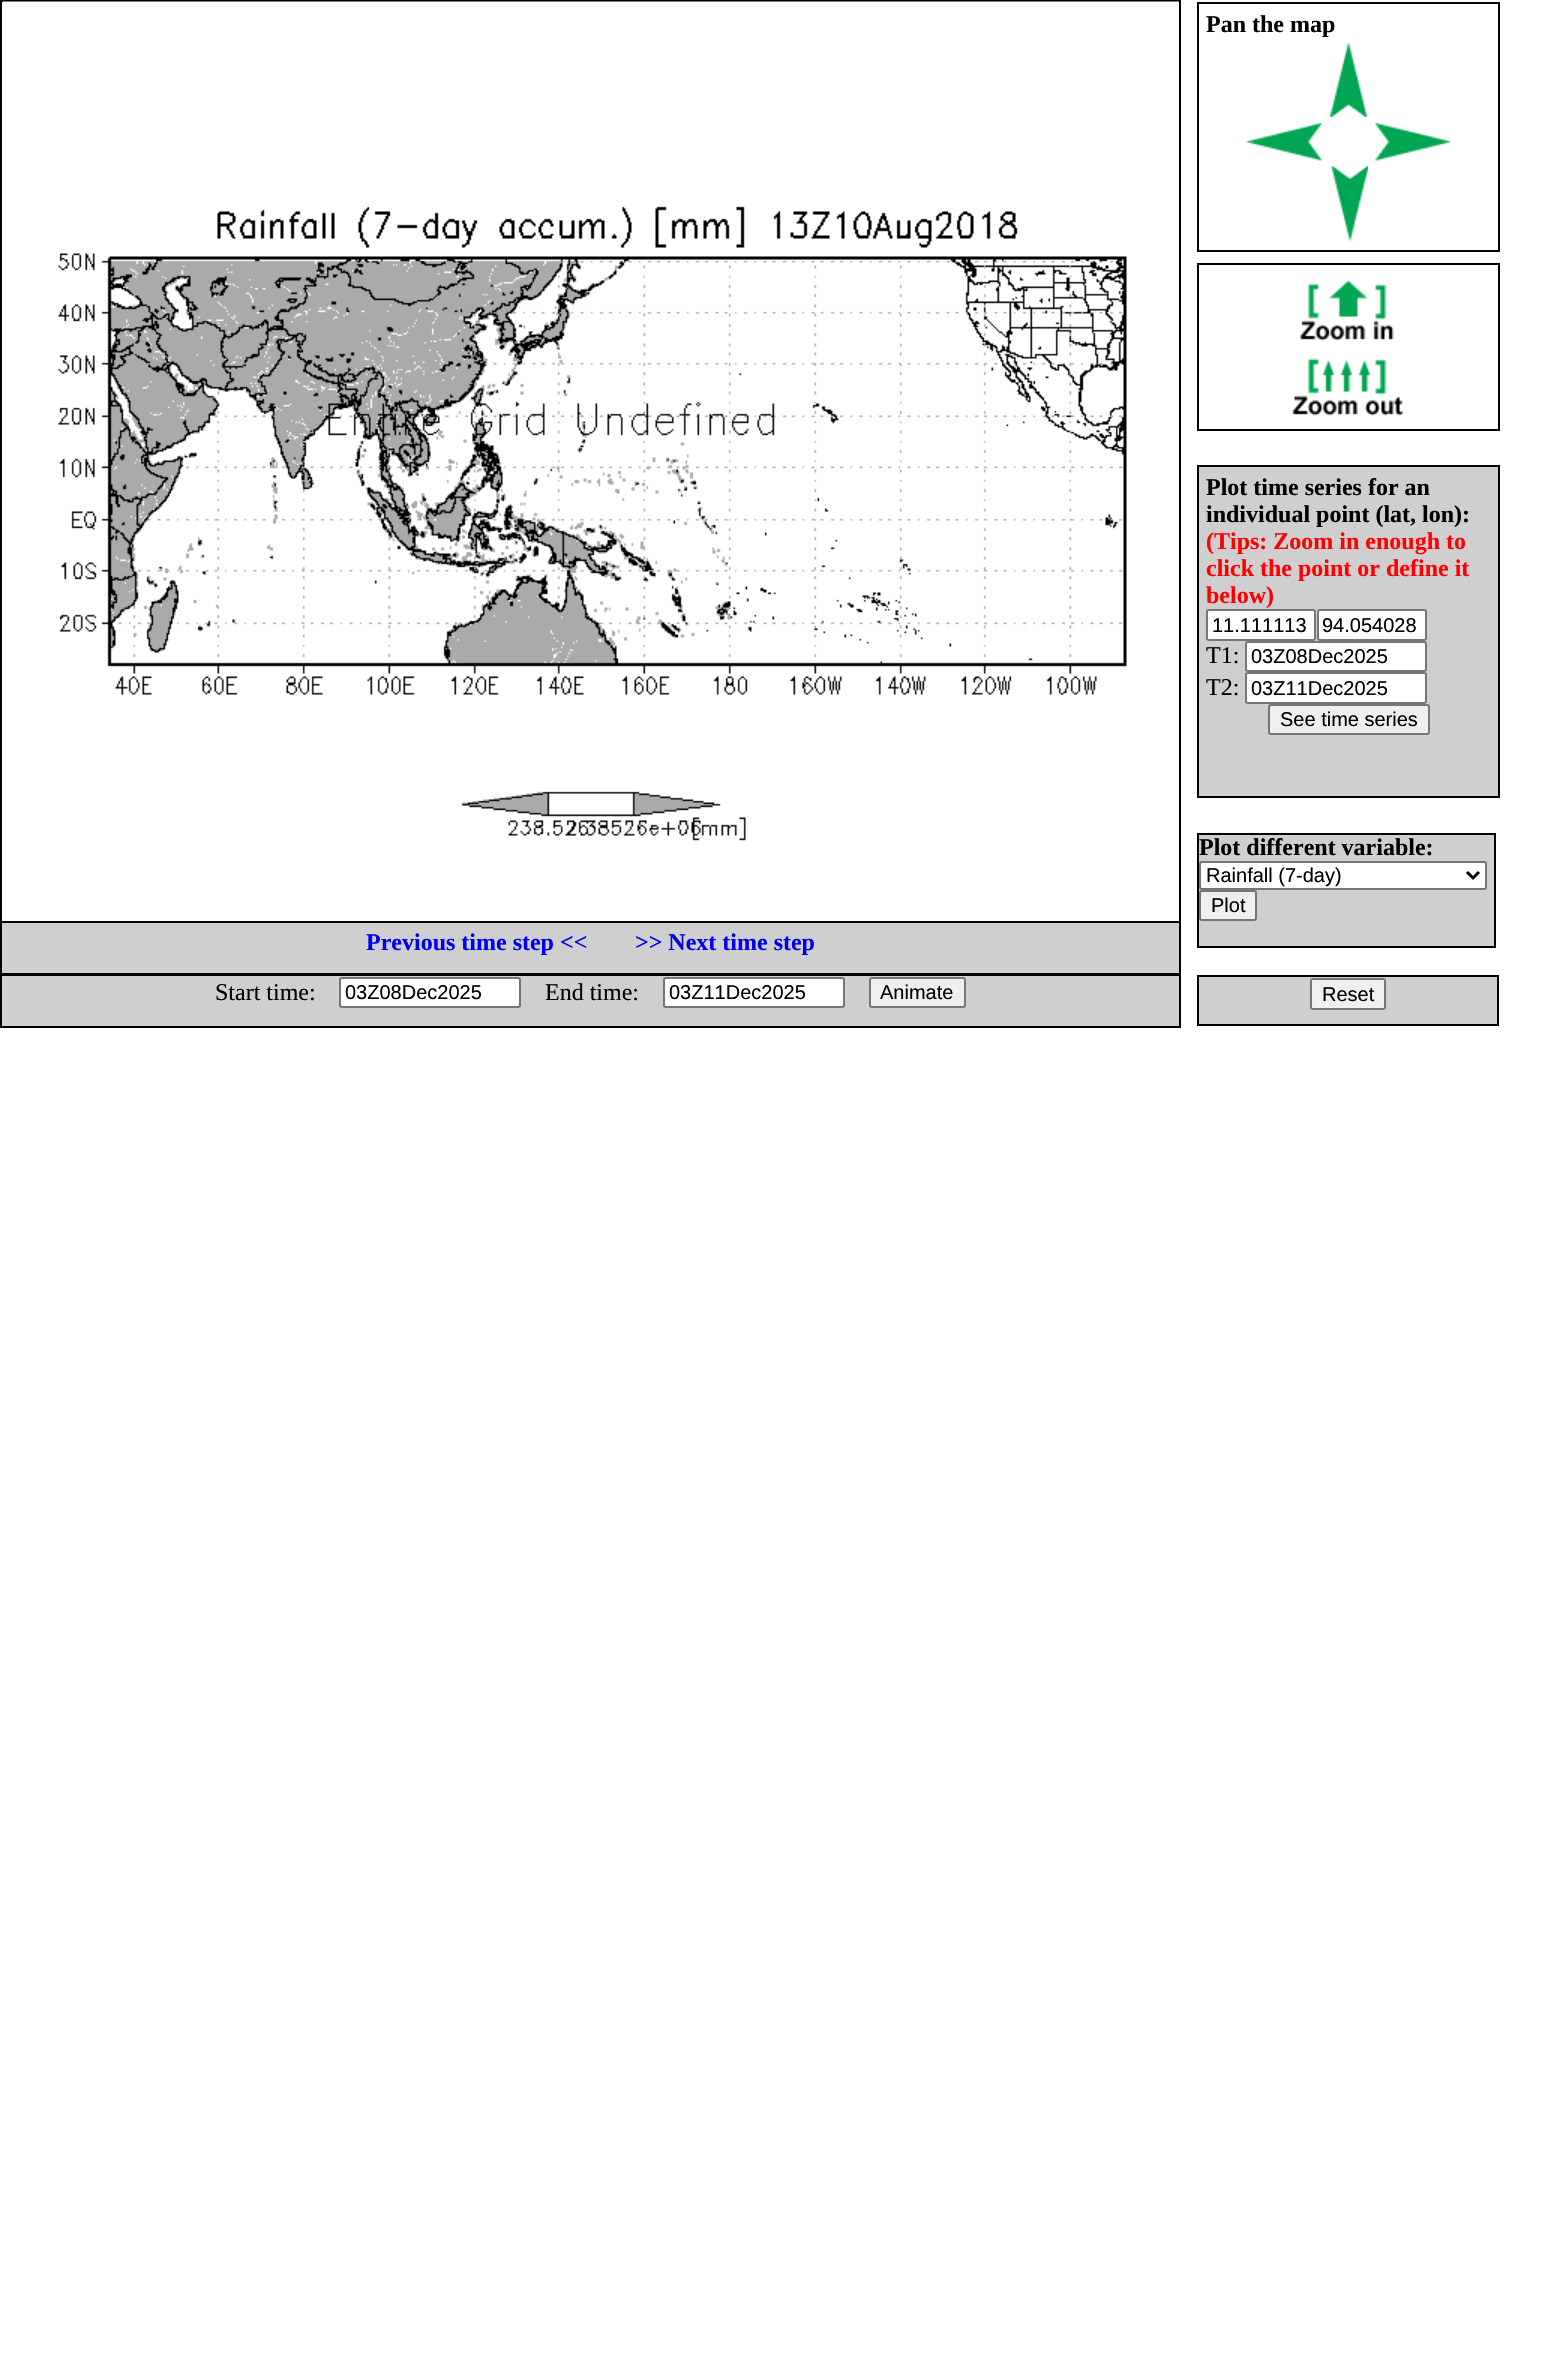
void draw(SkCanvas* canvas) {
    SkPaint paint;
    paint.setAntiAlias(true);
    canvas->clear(0xFFFFFFFF);
    paint.setStyle(SkPaint::kStroke_Style);
    paint.setStrokeWidth(2);
    paint.setColor(0xFF000000);
    canvas->drawRect(SkRect::MakeXYWH(1, 1, 1179, 1026), paint);
    canvas->drawImageRect(SkImages::DeferredFromEncodedData(SkData::MakeFromFileName("img1.png")), SkRect::MakeXYWH(3, 1, 1176, 840), SkSamplingOptions());
    canvas->drawRect(SkRect::MakeXYWH(1198, 3, 301, 248), paint);
    SkFont font1(fontMgr->matchFamilyStyle("Liberation Serif", SkFontStyle::Bold()), 24);
    font1.setSubpixel(true);
    paint.setStyle(SkPaint::kFill_Style);
    canvas->drawString("Pan the map", 1206, 32, font1, paint);
    canvas->drawImageRect(SkImages::DeferredFromEncodedData(SkData::MakeFromFileName("img2.png")), SkRect::MakeXYWH(1330, 42, 38, 75), SkSamplingOptions());
    canvas->drawImageRect(SkImages::DeferredFromEncodedData(SkData::MakeFromFileName("img3.png")), SkRect::MakeXYWH(1246, 123, 76, 38), SkSamplingOptions());
    canvas->drawImageRect(SkImages::DeferredFromEncodedData(SkData::MakeFromFileName("img4.png")), SkRect::MakeXYWH(1375, 123, 76, 38), SkSamplingOptions());
    canvas->drawImageRect(SkImages::DeferredFromEncodedData(SkData::MakeFromFileName("img5.png")), SkRect::MakeXYWH(1330, 166, 38, 76), SkSamplingOptions());
    paint.setStyle(SkPaint::kStroke_Style);
    canvas->drawRect(SkRect::MakeXYWH(1198, 264, 301, 166), paint);
    canvas->drawImageRect(SkImages::DeferredFromEncodedData(SkData::MakeFromFileName("img6.png")), SkRect::MakeXYWH(1300, 280, 94, 61), SkSamplingOptions());
    canvas->drawImageRect(SkImages::DeferredFromEncodedData(SkData::MakeFromFileName("img7.png")), SkRect::MakeXYWH(1292, 358, 111, 58), SkSamplingOptions());
    paint.setStyle(SkPaint::kFill_Style);
    paint.setColor(0xFFCFCFCF);
    canvas->drawRect(SkRect::MakeXYWH(1198, 466, 301, 331), paint);
    paint.setStyle(SkPaint::kStroke_Style);
    paint.setColor(0xFF000000);
    canvas->drawRect(SkRect::MakeXYWH(1198, 466, 301, 331), paint);
    paint.setStyle(SkPaint::kFill_Style);
    canvas->drawString("Plot time series for an", 1206, 495, font1, paint);
    canvas->drawString("individual point (lat, lon):", 1206, 522, font1, paint);
    paint.setColor(0xFFFF0000);
    canvas->drawString("(Tips: Zoom in enough to", 1206, 549, font1, paint);
    canvas->drawString("click the point or define it", 1206, 576, font1, paint);
    canvas->drawString("below)", 1206, 603, font1, paint);
    paint.setColor(0xFFFFFFFF);
    canvas->drawRoundRect(SkRect::MakeXYWH(1207, 610, 108, 30), 2, 2, paint);
    paint.setStyle(SkPaint::kStroke_Style);
    paint.setColor(0xFF767676);
    canvas->drawRoundRect(SkRect::MakeXYWH(1207, 610, 108, 30), 2, 2, paint);
    SkFont font2(fontMgr->matchFamilyStyle("Liberation Sans", SkFontStyle::Normal()), 20);
    font2.setSubpixel(true);
    paint.setStyle(SkPaint::kFill_Style);
    paint.setColor(0xFF000000);
    canvas->drawString("11.111113", 1212, 632, font2, paint);
    paint.setColor(0xFFFFFFFF);
    canvas->drawRoundRect(SkRect::MakeXYWH(1318, 610, 108, 30), 2, 2, paint);
    paint.setStyle(SkPaint::kStroke_Style);
    paint.setColor(0xFF767676);
    canvas->drawRoundRect(SkRect::MakeXYWH(1318, 610, 108, 30), 2, 2, paint);
    paint.setStyle(SkPaint::kFill_Style);
    paint.setColor(0xFF000000);
    canvas->drawString("94.054028", 1322, 632, font2, paint);
    SkFont font3(fontMgr->matchFamilyStyle("Liberation Serif", SkFontStyle::Normal()), 24);
    font3.setSubpixel(true);
    canvas->drawString("T1:", 1206, 663, font3, paint);
    paint.setColor(0xFFFFFFFF);
    canvas->drawRoundRect(SkRect::MakeXYWH(1246, 642, 180, 29), 2, 2, paint);
    paint.setStyle(SkPaint::kStroke_Style);
    paint.setColor(0xFF767676);
    canvas->drawRoundRect(SkRect::MakeXYWH(1246, 642, 180, 29), 2, 2, paint);
    paint.setStyle(SkPaint::kFill_Style);
    paint.setColor(0xFF000000);
    canvas->drawString("03Z08Dec2025", 1251, 663, font2, paint);
    canvas->drawString("T2:", 1206, 695, font3, paint);
    paint.setColor(0xFFFFFFFF);
    canvas->drawRoundRect(SkRect::MakeXYWH(1246, 673, 180, 30), 2, 2, paint);
    paint.setStyle(SkPaint::kStroke_Style);
    paint.setColor(0xFF767676);
    canvas->drawRoundRect(SkRect::MakeXYWH(1246, 673, 180, 30), 2, 2, paint);
    paint.setStyle(SkPaint::kFill_Style);
    paint.setColor(0xFF000000);
    canvas->drawString("03Z11Dec2025", 1251, 695, font2, paint);
    paint.setColor(0xFFEFEFEF);
    canvas->drawRoundRect(SkRect::MakeXYWH(1269, 705, 160, 29), 2, 2, paint);
    paint.setStyle(SkPaint::kStroke_Style);
    paint.setColor(0xFF767676);
    canvas->drawRoundRect(SkRect::MakeXYWH(1269, 705, 160, 29), 2, 2, paint);
    paint.setStyle(SkPaint::kFill_Style);
    paint.setColor(0xFF000000);
    canvas->drawString("See time series", 1280, 726, font2, paint);
    paint.setColor(0xFFCFCFCF);
    canvas->drawRect(SkRect::MakeXYWH(1198, 834, 297, 113), paint);
    paint.setStyle(SkPaint::kStroke_Style);
    paint.setColor(0xFF000000);
    canvas->drawRect(SkRect::MakeXYWH(1198, 834, 297, 113), paint);
    paint.setStyle(SkPaint::kFill_Style);
    canvas->drawString("Plot different variable:", 1199, 855, font1, paint);
    paint.setColor(0xFFFFFFFF);
    canvas->drawRoundRect(SkRect::MakeXYWH(1200, 862, 286, 27), 2, 2, paint);
    paint.setStyle(SkPaint::kStroke_Style);
    paint.setColor(0xFF767676);
    canvas->drawRoundRect(SkRect::MakeXYWH(1200, 862, 286, 27), 2, 2, paint);
    paint.setStrokeWidth(3);
    paint.setColor(0xFF000000);
    canvas->drawPath(SkPathBuilder().moveTo(1467, 872).lineTo(1473, 878).lineTo(1479, 872).detach(), paint);
    paint.setStyle(SkPaint::kFill_Style);
    canvas->drawString("Rainfall (7-day)", 1206, 882, font2, paint);
    paint.setColor(0xFFEFEFEF);
    canvas->drawRoundRect(SkRect::MakeXYWH(1200, 891, 56, 29), 2, 2, paint);
    paint.setStyle(SkPaint::kStroke_Style);
    paint.setStrokeWidth(2);
    paint.setColor(0xFF767676);
    canvas->drawRoundRect(SkRect::MakeXYWH(1200, 891, 56, 29), 2, 2, paint);
    paint.setStyle(SkPaint::kFill_Style);
    paint.setColor(0xFF000000);
    canvas->drawString("Plot", 1211, 912, font2, paint);
    paint.setColor(0xFFCFCFCF);
    canvas->drawRect(SkRect::MakeXYWH(1, 922, 1179, 52), paint);
    paint.setStyle(SkPaint::kStroke_Style);
    paint.setColor(0xFF000000);
    canvas->drawRect(SkRect::MakeXYWH(1, 922, 1179, 52), paint);
    paint.setStyle(SkPaint::kFill_Style);
    paint.setColor(0xFF0000EE);
    canvas->drawString("Previous time step <<", 366, 950, font1, paint);
    canvas->drawString(">> Next time step", 635, 950, font1, paint);
    paint.setColor(0xFFCFCFCF);
    canvas->drawRect(SkRect::MakeXYWH(1, 975, 1179, 52), paint);
    paint.setStyle(SkPaint::kStroke_Style);
    paint.setColor(0xFF000000);
    canvas->drawRect(SkRect::MakeXYWH(1, 975, 1179, 52), paint);
    paint.setStyle(SkPaint::kFill_Style);
    canvas->drawString("Start time:", 215, 1000, font3, paint);
    paint.setColor(0xFFFFFFFF);
    canvas->drawRoundRect(SkRect::MakeXYWH(340, 978, 180, 29), 2, 2, paint);
    paint.setStyle(SkPaint::kStroke_Style);
    paint.setColor(0xFF767676);
    canvas->drawRoundRect(SkRect::MakeXYWH(340, 978, 180, 29), 2, 2, paint);
    paint.setStyle(SkPaint::kFill_Style);
    paint.setColor(0xFF000000);
    canvas->drawString("03Z08Dec2025", 345, 999, font2, paint);
    canvas->drawString("End time:", 545, 1000, font3, paint);
    paint.setColor(0xFFFFFFFF);
    canvas->drawRoundRect(SkRect::MakeXYWH(664, 978, 180, 29), 2, 2, paint);
    paint.setStyle(SkPaint::kStroke_Style);
    paint.setColor(0xFF767676);
    canvas->drawRoundRect(SkRect::MakeXYWH(664, 978, 180, 29), 2, 2, paint);
    paint.setStyle(SkPaint::kFill_Style);
    paint.setColor(0xFF000000);
    canvas->drawString("03Z11Dec2025", 669, 999, font2, paint);
    paint.setColor(0xFFEFEFEF);
    canvas->drawRoundRect(SkRect::MakeXYWH(870, 978, 95, 29), 2, 2, paint);
    paint.setStyle(SkPaint::kStroke_Style);
    paint.setColor(0xFF767676);
    canvas->drawRoundRect(SkRect::MakeXYWH(870, 978, 95, 29), 2, 2, paint);
    paint.setStyle(SkPaint::kFill_Style);
    paint.setColor(0xFF000000);
    canvas->drawString("Animate", 880, 999, font2, paint);
    paint.setColor(0xFFCFCFCF);
    canvas->drawRect(SkRect::MakeXYWH(1198, 976, 300, 49), paint);
    paint.setStyle(SkPaint::kStroke_Style);
    paint.setColor(0xFF000000);
    canvas->drawRect(SkRect::MakeXYWH(1198, 976, 300, 49), paint);
    paint.setStyle(SkPaint::kFill_Style);
    paint.setColor(0xFFEFEFEF);
    canvas->drawRoundRect(SkRect::MakeXYWH(1311, 979, 74, 30), 2, 2, paint);
    paint.setStyle(SkPaint::kStroke_Style);
    paint.setColor(0xFF767676);
    canvas->drawRoundRect(SkRect::MakeXYWH(1311, 979, 74, 30), 2, 2, paint);
    paint.setStyle(SkPaint::kFill_Style);
    paint.setColor(0xFF000000);
    canvas->drawString("Reset", 1322, 1001, font2, paint);
}
